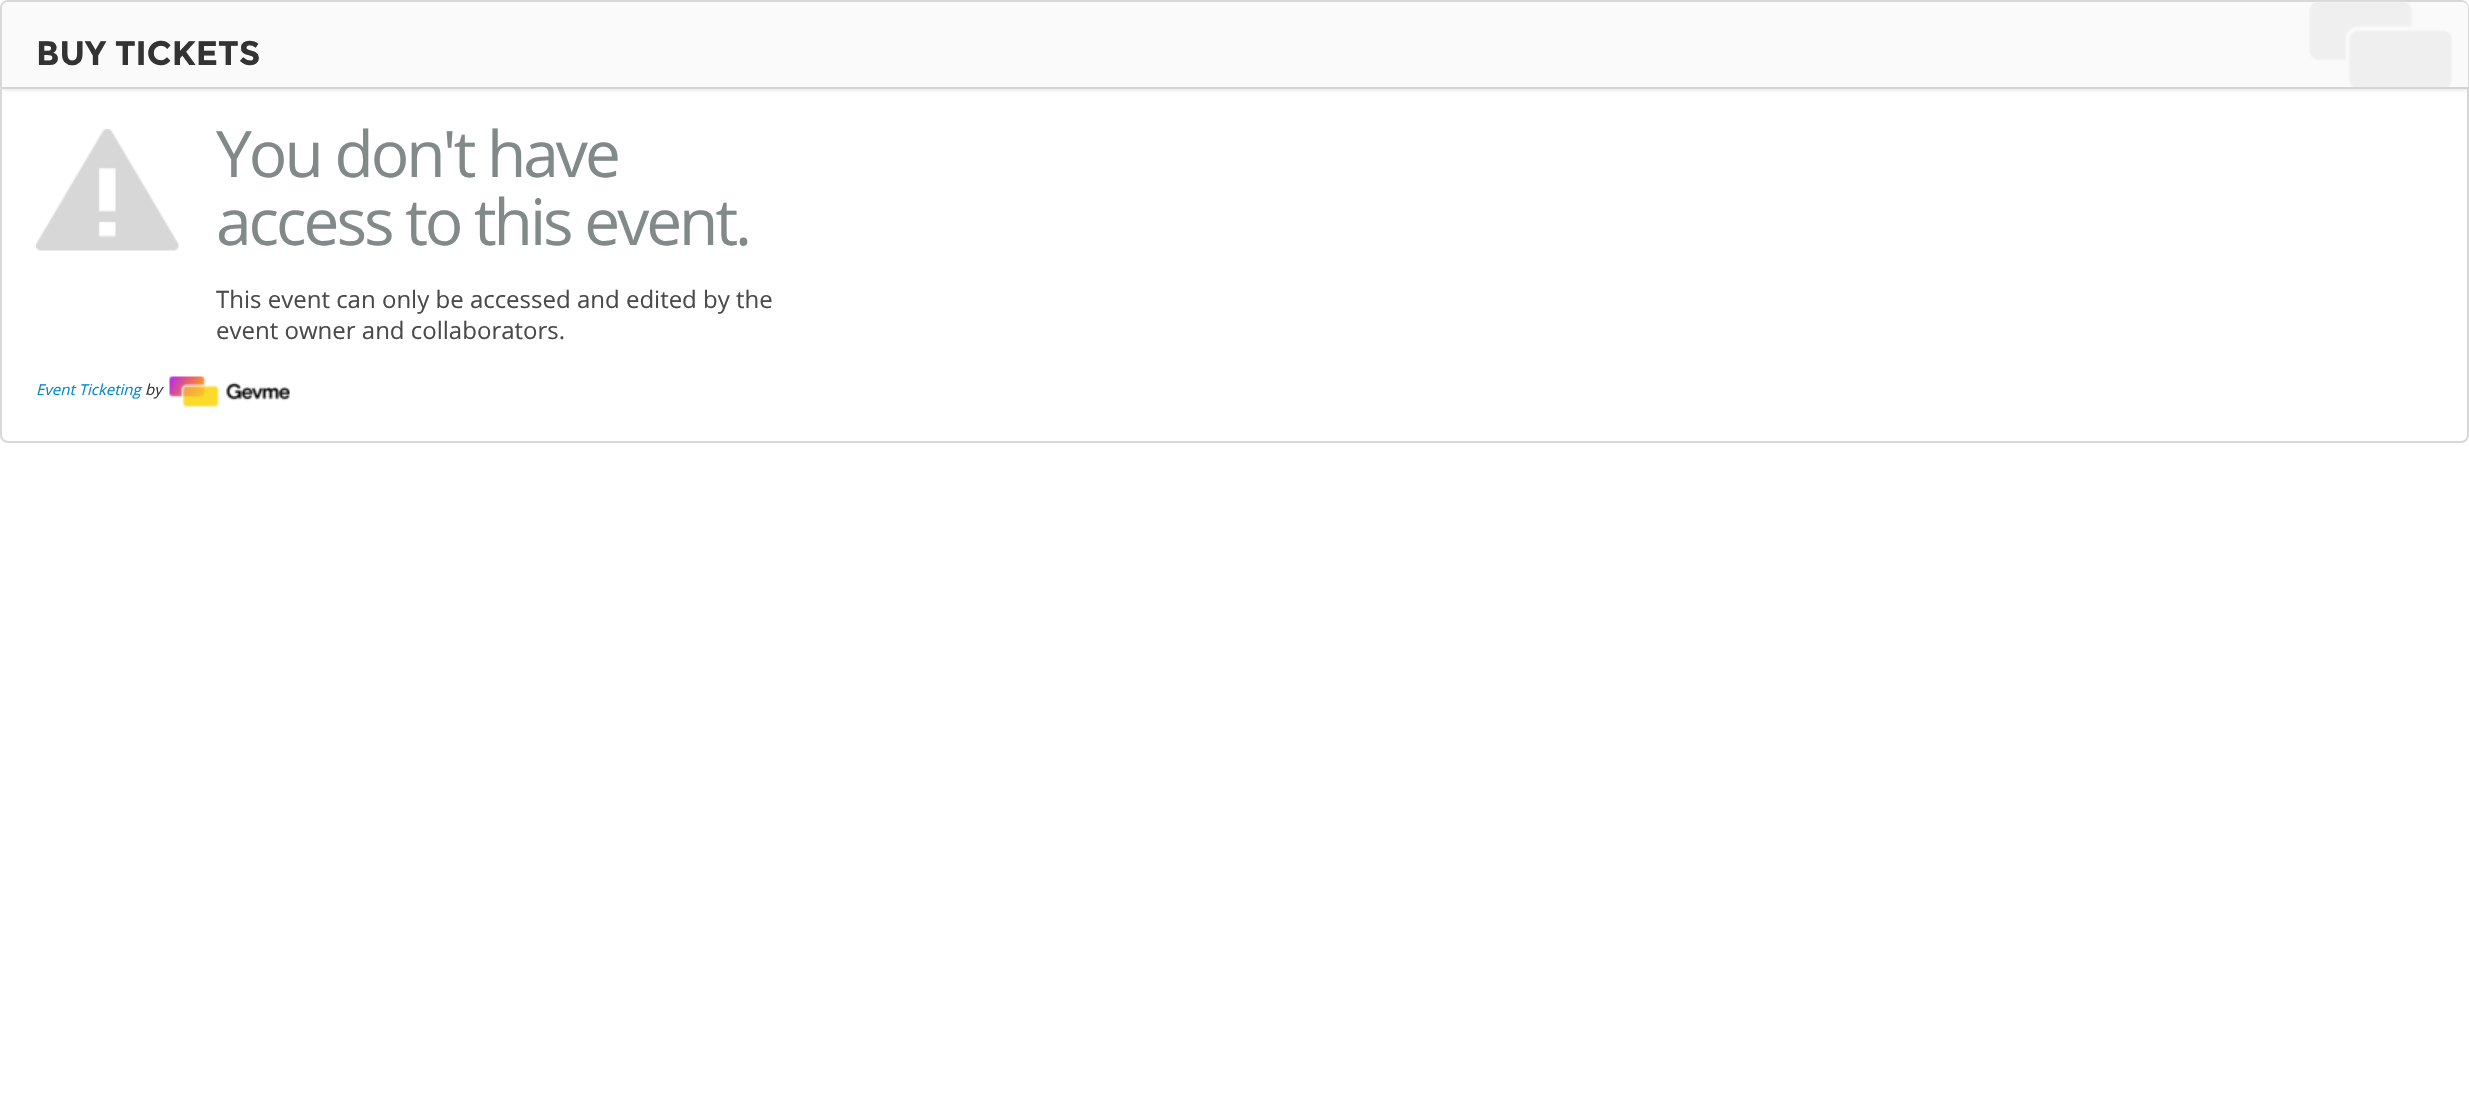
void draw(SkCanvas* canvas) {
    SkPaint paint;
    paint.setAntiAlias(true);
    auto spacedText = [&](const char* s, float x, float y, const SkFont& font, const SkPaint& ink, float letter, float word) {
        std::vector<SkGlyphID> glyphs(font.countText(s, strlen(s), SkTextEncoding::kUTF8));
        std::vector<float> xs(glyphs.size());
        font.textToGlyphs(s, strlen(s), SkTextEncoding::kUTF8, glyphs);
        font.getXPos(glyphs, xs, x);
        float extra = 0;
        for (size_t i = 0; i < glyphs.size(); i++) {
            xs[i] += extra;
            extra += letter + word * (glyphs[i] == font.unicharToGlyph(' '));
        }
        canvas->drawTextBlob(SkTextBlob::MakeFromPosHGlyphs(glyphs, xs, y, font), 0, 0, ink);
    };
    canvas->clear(0xFFFFFFFF);
    paint.setStyle(SkPaint::kStroke_Style);
    paint.setStrokeWidth(2);
    paint.setColor(0xFFD8D8D8);
    canvas->drawRoundRect(SkRect::MakeXYWH(1, 1, 2467, 441), 7, 7, paint);
    canvas->save();
    canvas->clipPath(SkPathBuilder().moveTo(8, 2).lineTo(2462, 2).cubicTo(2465.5f, 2, 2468, 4.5f, 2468, 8).lineTo(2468, 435).cubicTo(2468, 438.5f, 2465.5f, 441, 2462, 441).lineTo(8, 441).cubicTo(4.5f, 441, 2, 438.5f, 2, 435).lineTo(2, 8).cubicTo(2, 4.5f, 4.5f, 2, 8, 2).close().detach(), true);
    paint.setStyle(SkPaint::kFill_Style);
    paint.setColor(0x1A000000);
    paint.setMaskFilter(SkMaskFilter::MakeBlur(kNormal_SkBlurStyle, 2));
    canvas->drawRect(SkRect::MakeXYWH(2, 3, 2466, 87), paint);
    paint.setMaskFilter(nullptr);
    canvas->restore();
    paint.setColor(0xFFFAFAFA);
    canvas->drawPath(SkPathBuilder().moveTo(8, 2).lineTo(2462, 2).cubicTo(2465.5f, 2, 2468, 4.5f, 2468, 8).lineTo(2468, 89).lineTo(2, 89).lineTo(2, 8).cubicTo(2, 4.5f, 4.5f, 2, 8, 2).close().detach(), paint);
    canvas->drawImageRect(SkImages::DeferredFromEncodedData(SkData::MakeFromFileName("img1.png")), SkRect::MakeXYWH(2309, 1, 143, 86), SkSamplingOptions());
    paint.setColor(0xFFD4D4D4);
    canvas->drawRect(SkRect::MakeXYWH(2, 87, 2466, 2), paint);
    SkFont font1(fontMgr->matchFamilyStyle("Montserrat", SkFontStyle::Bold()), 34);
    font1.setSubpixel(true);
    paint.setColor(0xFF333333);
    canvas->drawString("BUY TICKETS", 36, 65, font1, paint);
    canvas->drawImageRect(SkImages::DeferredFromEncodedData(SkData::MakeFromFileName("img2.png")), SkRect::MakeXYWH(36, 129, 143, 122), SkSamplingOptions());
    SkFont font2(fontMgr->matchFamilyStyle("Open Sans", SkFontStyle::Normal()), 64);
    font2.setSubpixel(true);
    paint.setColor(0xFF818989);
    spacedText("You don't have", 216, 177, font2, paint, -3, 0);
    spacedText("access to this event.", 216, 245, font2, paint, -3, 0);
    SkFont font3(fontMgr->matchFamilyStyle("Open Sans", SkFontStyle::Normal()), 24);
    font3.setSubpixel(true);
    paint.setColor(0xFF4B4A4A);
    canvas->drawString("This event can only be accessed and edited by the", 216, 308, font3, paint);
    canvas->drawString("event owner and collaborators.", 216, 339, font3, paint);
    SkFont font4(fontMgr->matchFamilyStyle("Open Sans", SkFontStyle::Italic()), 15);
    font4.setSubpixel(true);
    paint.setColor(0xFF0088CC);
    canvas->drawString("Event Ticketing", 36, 395, font4, paint);
    paint.setColor(0xFF333333);
    canvas->drawString("by", 145, 395, font4, paint);
    canvas->drawImageRect(SkImages::DeferredFromEncodedData(SkData::MakeFromFileName("img3.png")), SkRect::MakeXYWH(169, 376, 121, 31), SkSamplingOptions());
}
